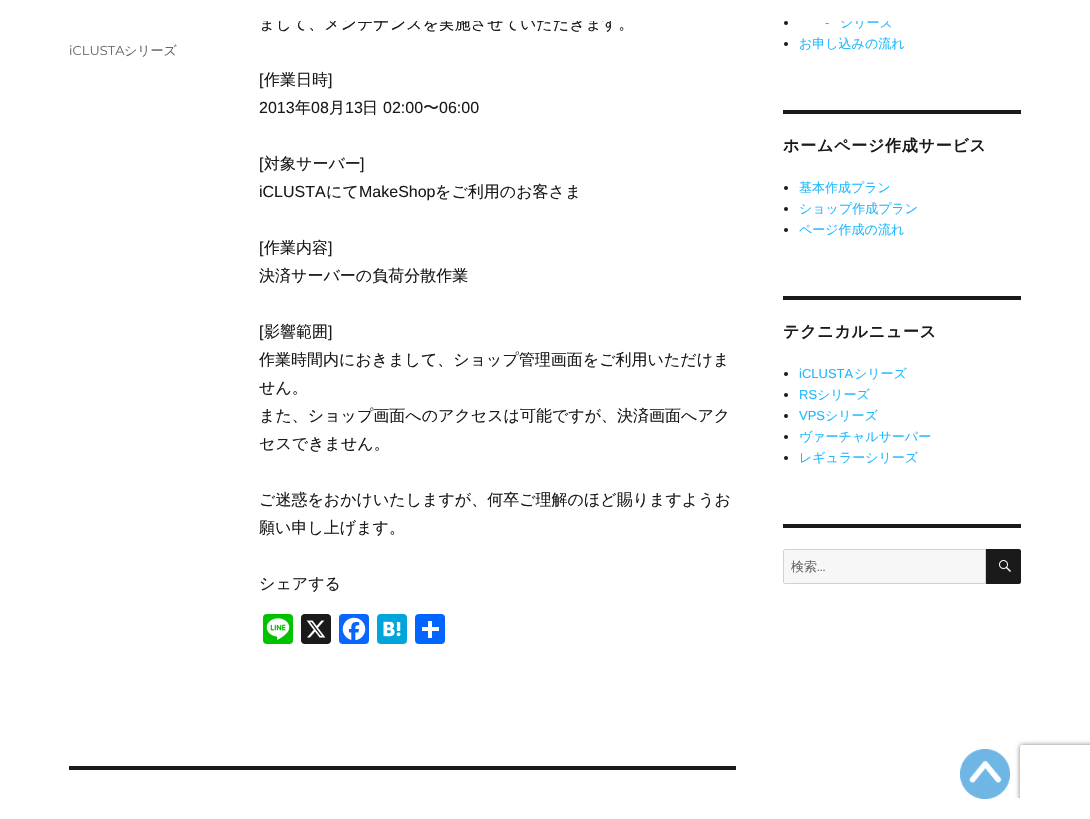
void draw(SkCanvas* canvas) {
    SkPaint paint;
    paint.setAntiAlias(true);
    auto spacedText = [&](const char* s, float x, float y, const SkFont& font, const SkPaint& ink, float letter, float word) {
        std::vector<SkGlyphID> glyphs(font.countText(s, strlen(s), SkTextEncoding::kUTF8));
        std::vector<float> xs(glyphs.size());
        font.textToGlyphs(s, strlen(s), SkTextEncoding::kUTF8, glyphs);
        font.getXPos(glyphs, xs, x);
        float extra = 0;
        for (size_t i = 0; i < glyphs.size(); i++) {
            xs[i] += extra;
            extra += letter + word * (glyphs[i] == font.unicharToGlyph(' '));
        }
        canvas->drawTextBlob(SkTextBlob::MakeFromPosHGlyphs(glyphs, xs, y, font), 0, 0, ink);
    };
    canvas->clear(0xFFFFFFFF);
    SkFont font1(fontMgr->matchFamilyStyle("Montserrat", SkFontStyle(100, SkFontStyle::kNormal_Width, SkFontStyle::kUpright_Slant)), 13);
    font1.setSubpixel(true);
    paint.setColor(0xFF686868);
    canvas->drawString("iCLUSTA", 69, 55, font1, paint);
    SkFont font2(fontMgr->matchFamilyStyle("WenQuanYi Zen Hei", SkFontStyle(500, SkFontStyle::kNormal_Width, SkFontStyle::kUpright_Slant)), 13);
    font2.setSubpixel(true);
    canvas->drawString("シリーズ", 124, 55, font2, paint);
    SkFont font3(fontMgr->matchFamilyStyle("WenQuanYi Zen Hei", SkFontStyle(500, SkFontStyle::kNormal_Width, SkFontStyle::kUpright_Slant)), 16);
    font3.setSubpixel(true);
    paint.setColor(0xFF1A1A1A);
    canvas->drawString("まして、メンテナンスを実施させていただきます。", 259, 29, font3, paint);
    SkFont font4(fontMgr->matchFamilyStyle("Liberation Sans", SkFontStyle::Normal()), 16);
    font4.setSubpixel(true);
    canvas->drawString("[", 259, 85, font4, paint);
    canvas->drawString("作業日時", 264, 85, font3, paint);
    canvas->drawString("]", 328, 85, font4, paint);
    canvas->drawString("2013", 259, 113, font4, paint);
    canvas->drawString("年", 295, 113, font3, paint);
    canvas->drawString("08", 311, 113, font4, paint);
    canvas->drawString("月", 329, 113, font3, paint);
    canvas->drawString("13", 345, 113, font4, paint);
    canvas->drawString("日", 362, 113, font3, paint);
    canvas->drawString("02:00", 383, 113, font4, paint);
    canvas->drawString("〜", 423, 113, font3, paint);
    canvas->drawString("06:00", 439, 113, font4, paint);
    canvas->drawString("[", 259, 169, font4, paint);
    canvas->drawString("対象サーバー", 264, 169, font3, paint);
    canvas->drawString("]", 360, 169, font4, paint);
    canvas->drawString("iCLUSTA", 259, 197, font4, paint);
    canvas->drawString("にて", 326, 197, font3, paint);
    canvas->drawString("MakeShop", 359, 197, font4, paint);
    canvas->drawString("をご利用のお客さま", 435, 197, font3, paint);
    canvas->drawString("[", 259, 253, font4, paint);
    canvas->drawString("作業内容", 264, 253, font3, paint);
    canvas->drawString("]", 328, 253, font4, paint);
    canvas->drawString("決済サーバーの負荷分散作業", 259, 281, font3, paint);
    canvas->drawString("[", 259, 337, font4, paint);
    canvas->drawString("影響範囲", 264, 337, font3, paint);
    canvas->drawString("]", 328, 337, font4, paint);
    canvas->drawString("作業時間内におきまして、ショップ管理画面をご利用いただけま", 259, 365, font3, paint);
    canvas->drawString("せん。", 259, 393, font3, paint);
    canvas->drawString("また、ショップ画面へのアクセスは可能ですが、決済画面へアク", 259, 421, font3, paint);
    canvas->drawString("セスできません。", 259, 449, font3, paint);
    canvas->drawString("ご迷惑をおかけいたしますが、何卒ご理解のほど賜りますようお", 259, 505, font3, paint);
    canvas->drawString("願い申し上げます。", 259, 533, font3, paint);
    canvas->drawString("シェアする", 259, 589, font3, paint);
    paint.setColor(0xFF00C300);
    canvas->drawRoundRect(SkRect::MakeXYWH(263, 614, 30, 30), 4, 4, paint);
    canvas->drawImageRect(SkImages::DeferredFromEncodedData(SkData::MakeFromFileName("img1.png")), SkRect::MakeXYWH(266, 618, 24, 22), SkSamplingOptions());
    paint.setColor(0xFF1A1A1A);
    canvas->drawRoundRect(SkRect::MakeXYWH(301, 614, 30, 30), 4, 4, paint);
    canvas->drawImageRect(SkImages::DeferredFromEncodedData(SkData::MakeFromFileName("img2.png")), SkRect::MakeXYWH(306, 620, 20, 18), SkSamplingOptions());
    paint.setColor(0xFF0866FF);
    canvas->drawRoundRect(SkRect::MakeXYWH(339, 614, 30, 30), 4, 4, paint);
    canvas->drawImageRect(SkImages::DeferredFromEncodedData(SkData::MakeFromFileName("img3.png")), SkRect::MakeXYWH(342, 617, 24, 24), SkSamplingOptions());
    paint.setColor(0xFF00A6DB);
    canvas->drawRoundRect(SkRect::MakeXYWH(377, 614, 30, 30), 4, 4, paint);
    canvas->drawImageRect(SkImages::DeferredFromEncodedData(SkData::MakeFromFileName("img4.png")), SkRect::MakeXYWH(383, 621, 18, 16), SkSamplingOptions());
    paint.setColor(0xFF0166FF);
    canvas->drawRoundRect(SkRect::MakeXYWH(415, 614, 30, 30), 4, 4, paint);
    paint.setColor(0xFFFFFFFF);
    canvas->drawRect(SkRect::MakeXYWH(428, 621, 4, 17), paint);
    canvas->drawRect(SkRect::MakeXYWH(422, 627, 17, 4), paint);
    paint.setColor(0xFF1A1A1A);
    canvas->drawRect(SkRect::MakeXYWH(69, 766, 667, 4), paint);
    canvas->drawCircle(786, 23, 2, paint);
    SkFont font5(fontMgr->matchFamilyStyle("Liberation Sans", SkFontStyle::Normal()), 13);
    font5.setSubpixel(true);
    paint.setColor(0xFF1FB9FF);
    canvas->drawString("-", 825, 27, font5, paint);
    canvas->drawString("シリーズ", 840, 27, font2, paint);
    paint.setColor(0xFF1A1A1A);
    canvas->drawCircle(786, 44, 2, paint);
    paint.setColor(0xFF1FB9FF);
    canvas->drawString("お申し込みの流れ", 799, 48, font2, paint);
    paint.setColor(0xFF1A1A1A);
    canvas->drawRect(SkRect::MakeXYWH(783, 110, 238, 4), paint);
    SkFont font6(fontMgr->matchFamilyStyle("WenQuanYi Zen Hei", SkFontStyle::Bold()), 16);
    font6.setSubpixel(true);
    spacedText("ホームページ作成サービス", 783, 151, font6, paint, 0.75f, 0);
    canvas->drawCircle(786, 188, 2, paint);
    paint.setColor(0xFF1FB9FF);
    canvas->drawString("基本作成プラン", 799, 192, font2, paint);
    paint.setColor(0xFF1A1A1A);
    canvas->drawCircle(786, 209, 2, paint);
    paint.setColor(0xFF1FB9FF);
    canvas->drawString("ショップ作成プラン", 799, 213, font2, paint);
    paint.setColor(0xFF1A1A1A);
    canvas->drawCircle(786, 230, 2, paint);
    paint.setColor(0xFF1FB9FF);
    canvas->drawString("ページ作成の流れ", 799, 234, font2, paint);
    paint.setColor(0xFF1A1A1A);
    canvas->drawRect(SkRect::MakeXYWH(783, 296, 238, 4), paint);
    spacedText("テクニカルニュース", 783, 337, font6, paint, 0.75f, 0);
    canvas->drawCircle(786, 374, 2, paint);
    paint.setColor(0xFF1FB9FF);
    canvas->drawString("iCLUSTA", 799, 378, font5, paint);
    canvas->drawString("シリーズ", 854, 378, font2, paint);
    paint.setColor(0xFF1A1A1A);
    canvas->drawCircle(786, 395, 2, paint);
    paint.setColor(0xFF1FB9FF);
    canvas->drawString("RS", 799, 399, font5, paint);
    canvas->drawString("シリーズ", 817, 399, font2, paint);
    paint.setColor(0xFF1A1A1A);
    canvas->drawCircle(786, 416, 2, paint);
    paint.setColor(0xFF1FB9FF);
    canvas->drawString("VPS", 799, 420, font5, paint);
    canvas->drawString("シリーズ", 825, 420, font2, paint);
    paint.setColor(0xFF1A1A1A);
    canvas->drawCircle(786, 437, 2, paint);
    paint.setColor(0xFF1FB9FF);
    canvas->drawString("ヴァーチャルサーバー", 799, 441, font2, paint);
    paint.setColor(0xFF1A1A1A);
    canvas->drawCircle(786, 458, 2, paint);
    paint.setColor(0xFF1FB9FF);
    canvas->drawString("レギュラーシリーズ", 799, 462, font2, paint);
    paint.setColor(0xFF1A1A1A);
    canvas->drawRect(SkRect::MakeXYWH(783, 524, 238, 4), paint);
    paint.setColor(0xFFF7F7F7);
    canvas->drawPath(SkPathBuilder().moveTo(785, 549.5f).lineTo(985.5f, 549.5f).lineTo(985.5f, 583.5f).lineTo(785, 583.5f).cubicTo(784, 583.5f, 783.5f, 583, 783.5f, 582).lineTo(783.5f, 551).cubicTo(783.5f, 550, 784, 549.5f, 785, 549.5f).close().detach(), paint);
    paint.setStyle(SkPaint::kStroke_Style);
    paint.setStrokeWidth(1);
    paint.setColor(0xFFD1D1D1);
    canvas->drawPath(SkPathBuilder().moveTo(785, 549.5f).lineTo(985.5f, 549.5f).lineTo(985.5f, 583.5f).lineTo(785, 583.5f).cubicTo(784, 583.5f, 783.5f, 583, 783.5f, 582).lineTo(783.5f, 551).cubicTo(783.5f, 550, 784, 549.5f, 785, 549.5f).close().detach(), paint);
    paint.setStyle(SkPaint::kFill_Style);
    paint.setColor(0xFF686868);
    canvas->drawString("検索", 791, 571, font2, paint);
    canvas->drawString("…", 817, 571, font1, paint);
    paint.setColor(0xFF1A1A1A);
    canvas->drawPath(SkPathBuilder().moveTo(986, 549).lineTo(1019, 549).cubicTo(1020, 549, 1021, 550, 1021, 551).lineTo(1021, 582).cubicTo(1021, 583, 1020, 584, 1019, 584).lineTo(986, 584).close().detach(), paint);
    canvas->drawImageRect(SkImages::DeferredFromEncodedData(SkData::MakeFromFileName("img5.png")), SkRect::MakeXYWH(999, 560, 12, 12), SkSamplingOptions());
    paint.setColor(0xFFFFFFFF);
    canvas->drawRect(SkRect::MakeXYWH(262, 15, 631, 6), paint);
    canvas->drawImageRect(SkImages::DeferredFromEncodedData(SkData::MakeFromFileName("img6.png")), SkRect::MakeXYWH(960, 749, 50, 50), SkSamplingOptions());
    canvas->save();
    canvas->clipPath(SkPathBuilder(SkPathFillType::kEvenOdd).moveTo(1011, 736).lineTo(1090, 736).lineTo(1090, 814).lineTo(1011, 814).close().moveTo(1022, 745).lineTo(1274, 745).cubicTo(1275, 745, 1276, 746, 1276, 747).lineTo(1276, 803).cubicTo(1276, 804, 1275, 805, 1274, 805).lineTo(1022, 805).cubicTo(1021, 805, 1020, 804, 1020, 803).lineTo(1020, 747).cubicTo(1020, 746, 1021, 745, 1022, 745).close().detach(), true);
    paint.setColor(0xFF808080);
    paint.setMaskFilter(SkMaskFilter::MakeBlur(kNormal_SkBlurStyle, 2.5f));
    canvas->drawRoundRect(SkRect::MakeXYWH(1020, 745, 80, 60), 2, 2, paint);
    paint.setMaskFilter(nullptr);
    canvas->restore();
    paint.setColor(0xFFFFFFFF);
    canvas->drawRect(SkRect::MakeXYWH(1015, 798, 75, 12), paint);
}
